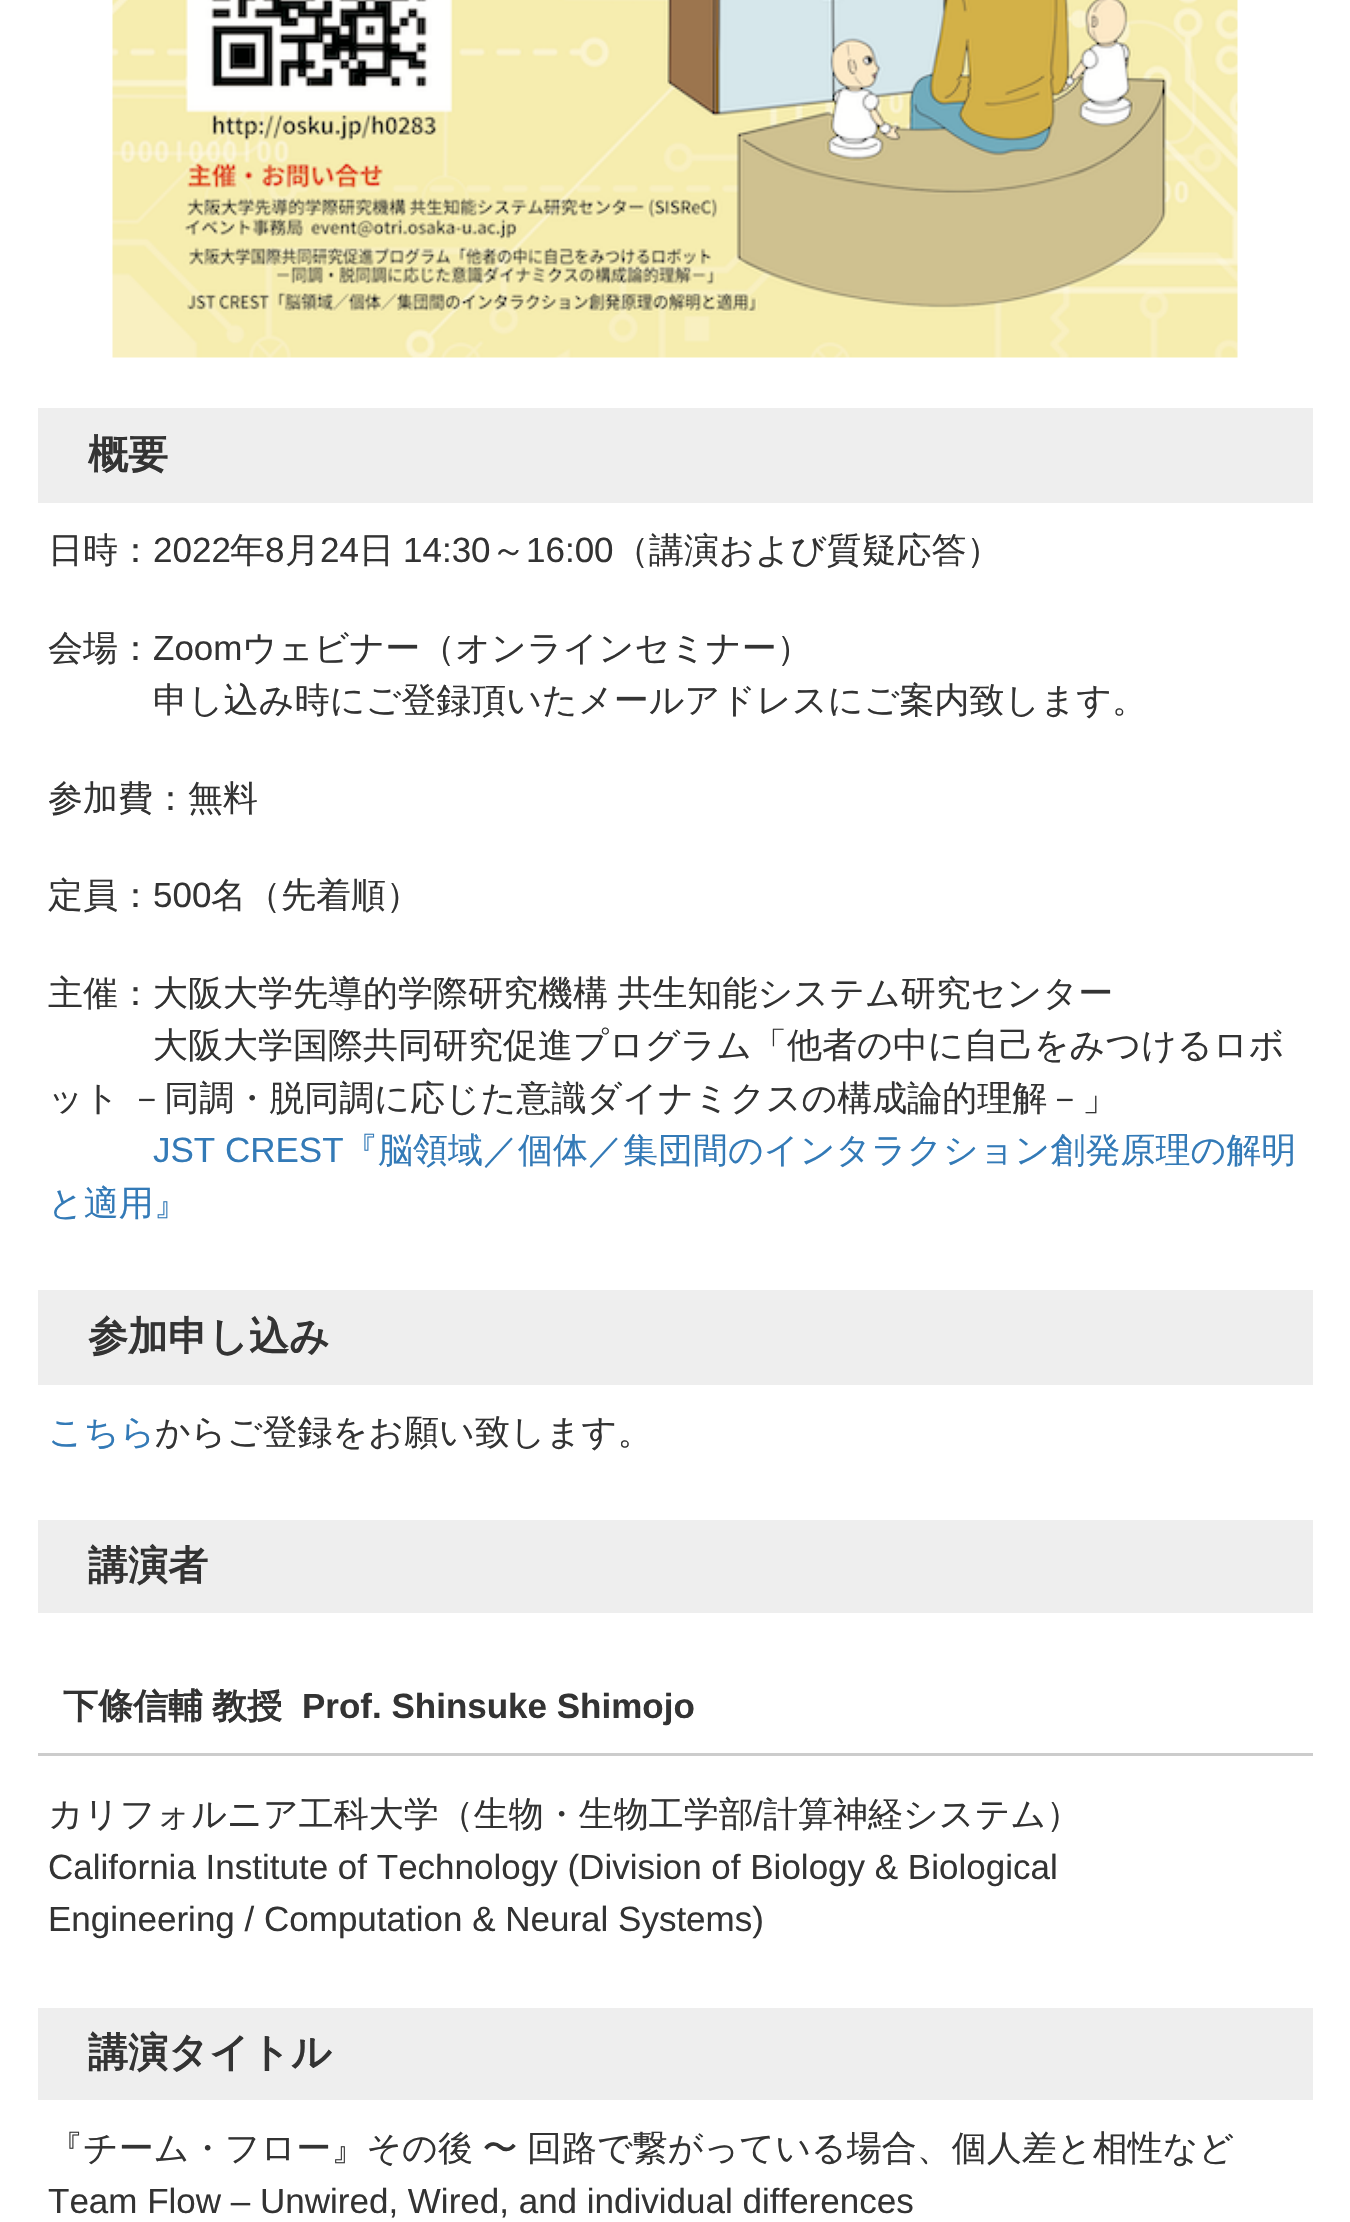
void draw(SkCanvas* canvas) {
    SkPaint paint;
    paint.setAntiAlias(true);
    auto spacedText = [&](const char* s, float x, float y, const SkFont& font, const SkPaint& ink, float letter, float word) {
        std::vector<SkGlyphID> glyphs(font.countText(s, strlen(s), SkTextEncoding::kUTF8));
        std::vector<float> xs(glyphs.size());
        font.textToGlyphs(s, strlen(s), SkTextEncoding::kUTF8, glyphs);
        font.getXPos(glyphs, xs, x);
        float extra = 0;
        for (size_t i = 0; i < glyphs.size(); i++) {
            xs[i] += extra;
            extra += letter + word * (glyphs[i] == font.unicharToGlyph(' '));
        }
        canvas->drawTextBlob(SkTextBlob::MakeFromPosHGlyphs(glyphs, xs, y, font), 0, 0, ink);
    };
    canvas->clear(0xFFFFFFFF);
    canvas->drawImageRect(SkImages::DeferredFromEncodedData(SkData::MakeFromFileName("img1.png")), SkRect::MakeXYWH(112, 0, 1126, 358), SkSamplingOptions());
    paint.setColor(0xFFEEEEEE);
    canvas->drawRect(SkRect::MakeXYWH(38, 408, 1275, 95), paint);
    SkFont font1(fontMgr->matchFamilyStyle("WenQuanYi Zen Hei", SkFontStyle::Bold()), 40);
    font1.setSubpixel(true);
    paint.setColor(0xFF333333);
    canvas->drawString("概要", 88, 468, font1, paint);
    SkFont font2(fontMgr->matchFamilyStyle("WenQuanYi Zen Hei", SkFontStyle(500, SkFontStyle::kNormal_Width, SkFontStyle::kUpright_Slant)), 35);
    font2.setSubpixel(true);
    canvas->drawString("日時：", 48, 562, font2, paint);
    SkFont font3(fontMgr->matchFamilyStyle("Liberation Sans", SkFontStyle::Normal()), 35);
    font3.setSubpixel(true);
    canvas->drawString("2022", 153, 562, font3, paint);
    canvas->drawString("年", 230, 562, font2, paint);
    canvas->drawString("8", 265, 562, font3, paint);
    canvas->drawString("月", 285, 562, font2, paint);
    canvas->drawString("24", 320, 562, font3, paint);
    canvas->drawString("日", 359, 562, font2, paint);
    canvas->drawString("14:30", 403, 562, font3, paint);
    canvas->drawString("～", 491, 562, font2, paint);
    canvas->drawString("16:00", 526, 562, font3, paint);
    canvas->drawString("（講演および質疑応答）", 614, 562, font2, paint);
    canvas->drawString("会場：", 48, 660, font2, paint);
    canvas->drawString("Zoom", 153, 660, font3, paint);
    canvas->drawString("ウェビナー（オンラインセミナー）", 242, 660, font2, paint);
    canvas->drawString("申し込み時にご登録頂いたメールアドレスにご案内致します。", 153, 712, font2, paint);
    canvas->drawString("参加費：無料", 48, 810, font2, paint);
    canvas->drawString("定員：", 48, 907, font2, paint);
    canvas->drawString("500", 153, 907, font3, paint);
    canvas->drawString("名（先着順）", 211, 907, font2, paint);
    spacedText("主催：大阪大学先導的学際研究機構 共生知能システム研究センター", 48, 1005, font2, paint, 0, -1);
    canvas->drawString("大阪大学国際共同研究促進プログラム「他者の中に自己をみつけるロボ", 153, 1057, font2, paint);
    spacedText("ット －同調・脱同調に応じた意識ダイナミクスの構成論的理解－」", 48, 1110, font2, paint, 0, -1);
    paint.setColor(0xFF337AB7);
    canvas->drawString("JST CREST", 153, 1162, font3, paint);
    canvas->drawString("『脳領域／個体／集団間のインタラクション創発原理の解明", 343, 1162, font2, paint);
    canvas->drawString("と適用』", 48, 1215, font2, paint);
    paint.setColor(0xFFEEEEEE);
    canvas->drawRect(SkRect::MakeXYWH(38, 1290, 1275, 95), paint);
    paint.setColor(0xFF333333);
    canvas->drawString("参加申し込み", 88, 1350, font1, paint);
    paint.setColor(0xFF337AB7);
    canvas->drawString("こちら", 48, 1444, font2, paint);
    paint.setColor(0xFF333333);
    canvas->drawString("からご登録をお願い致します。", 155, 1444, font2, paint);
    paint.setColor(0xFFEEEEEE);
    canvas->drawRect(SkRect::MakeXYWH(38, 1520, 1275, 93), paint);
    paint.setColor(0xFF333333);
    canvas->drawString("講演者", 88, 1579, font1, paint);
    paint.setColor(0xFFCCCCCC);
    canvas->drawRect(SkRect::MakeXYWH(38, 1753, 1275, 3), paint);
    SkFont font4(fontMgr->matchFamilyStyle("WenQuanYi Zen Hei", SkFontStyle::Bold()), 35);
    font4.setSubpixel(true);
    paint.setColor(0xFF333333);
    canvas->drawString("下條信輔", 63, 1718, font4, paint);
    canvas->drawString("教授", 212, 1718, font4, paint);
    SkFont font5(fontMgr->matchFamilyStyle("Liberation Sans", SkFontStyle::Bold()), 35);
    font5.setSubpixel(true);
    canvas->drawString("Prof. Shinsuke Shimojo", 302, 1718, font5, paint);
    canvas->drawString("カリフォルニア工科大学（生物・生物工学部", 48, 1826, font2, paint);
    canvas->drawString("/", 753, 1826, font3, paint);
    canvas->drawString("計算神経システム）", 763, 1826, font2, paint);
    canvas->drawString("California Institute of Technology (Division of Biology & Biological", 48, 1879, font3, paint);
    canvas->drawString("Engineering / Computation & Neural Systems)", 48, 1931, font3, paint);
    paint.setColor(0xFFEEEEEE);
    canvas->drawRect(SkRect::MakeXYWH(38, 2008, 1275, 92), paint);
    paint.setColor(0xFF333333);
    canvas->drawString("講演タイトル", 88, 2066, font1, paint);
    spacedText("『チーム・フロー』その後 〜 回路で繋がっている場合、個人差と相性など", 48, 2160, font2, paint, 0, -1);
    canvas->drawString("Team Flow – Unwired, Wired, and individual differences", 48, 2213, font3, paint);
}
